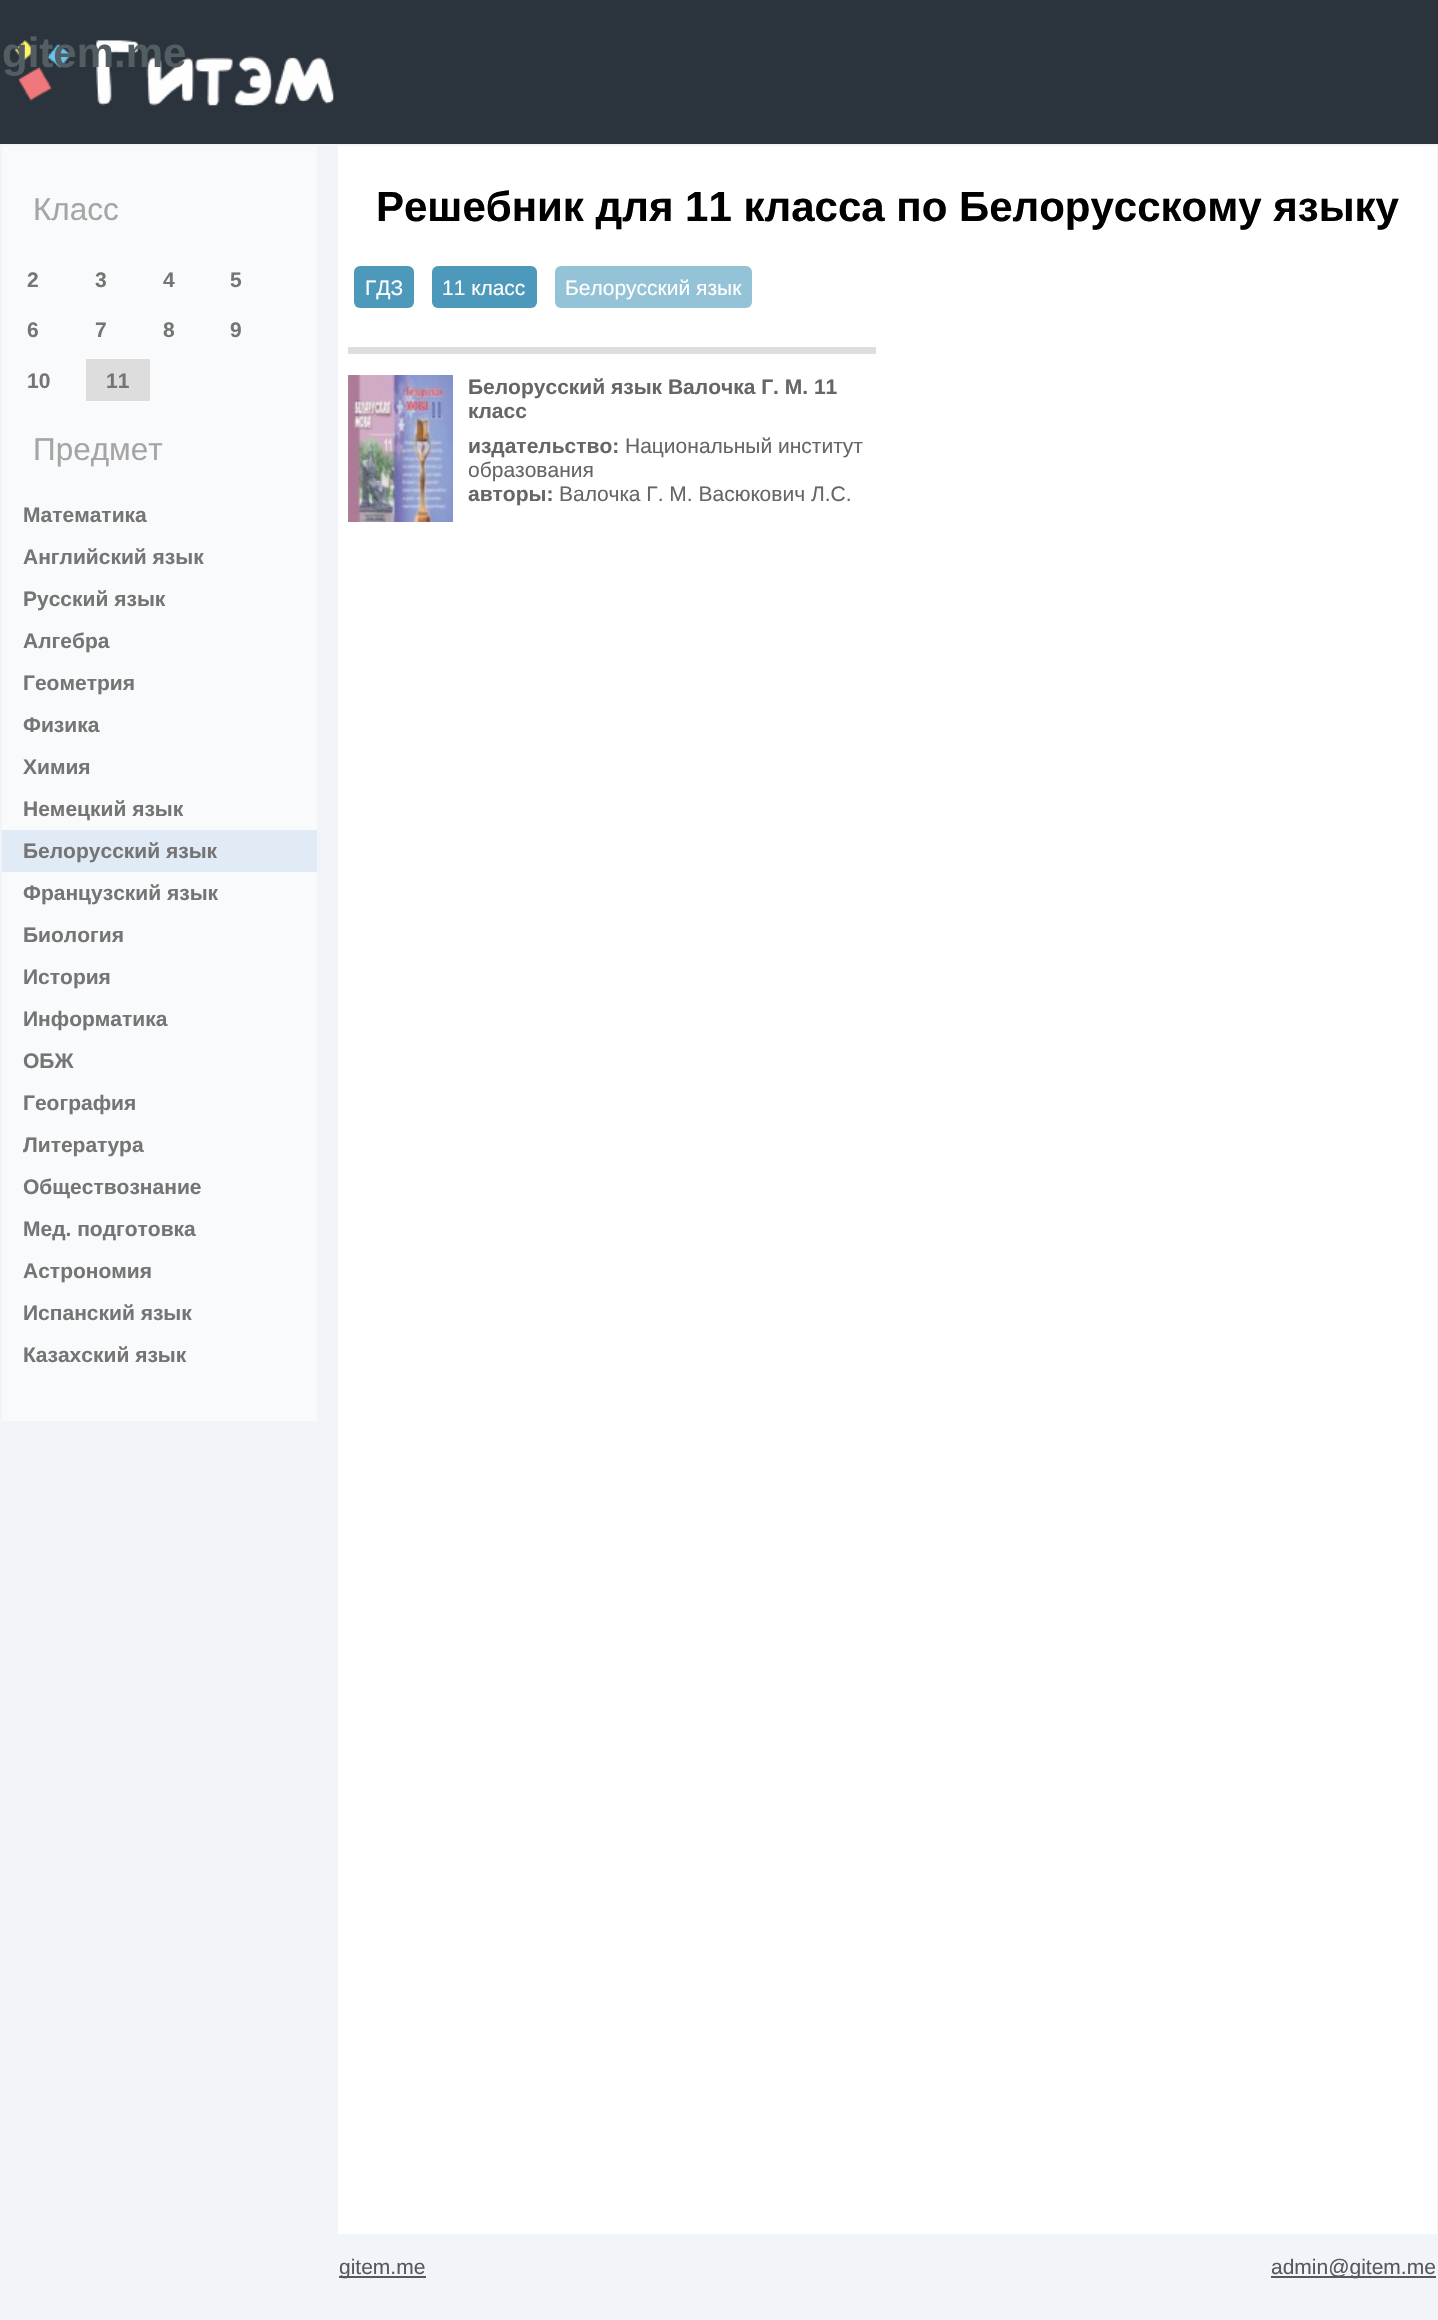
void draw(SkCanvas* canvas) {
    SkPaint paint;
    paint.setAntiAlias(true);
    canvas->clear(0xFFF1F4F9);
    paint.setColor(0xFF2B333C);
    canvas->drawRect(SkRect::MakeXYWH(0, 0, 1438, 144), paint);
    canvas->drawImageRect(SkImages::DeferredFromEncodedData(SkData::MakeFromFileName("img1.png")), SkRect::MakeXYWH(14, 40, 320, 66), SkSamplingOptions());
    SkFont font1(fontMgr->matchFamilyStyle("Liberation Sans", SkFontStyle::Bold()), 42);
    font1.setSubpixel(true);
    paint.setColor(0xFF525E62);
    canvas->drawString("gitem.me", 2, 67, font1, paint);
    paint.setColor(0xFFF8FAFC);
    canvas->drawRect(SkRect::MakeXYWH(2, 146, 315, 1275), paint);
    SkFont font2(fontMgr->matchFamilyStyle("Liberation Sans", SkFontStyle::Normal()), 31.5f);
    font2.setSubpixel(true);
    paint.setColor(0xFFA5A5A5);
    canvas->drawString("Класс", 33, 220, font2, paint);
    SkFont font3(fontMgr->matchFamilyStyle("Liberation Sans", SkFontStyle::Bold()), 21);
    font3.setSubpixel(true);
    paint.setColor(0xFF757575);
    canvas->drawString("2", 27, 287, font3, paint);
    canvas->drawString("3", 95, 287, font3, paint);
    canvas->drawString("4", 163, 287, font3, paint);
    canvas->drawString("5", 230, 287, font3, paint);
    canvas->drawString("6", 27, 337, font3, paint);
    canvas->drawString("7", 95, 337, font3, paint);
    canvas->drawString("8", 163, 337, font3, paint);
    canvas->drawString("9", 230, 337, font3, paint);
    canvas->drawString("10", 27, 388, font3, paint);
    paint.setColor(0xFFDDDDDD);
    canvas->drawRect(SkRect::MakeXYWH(86, 359, 64, 42), paint);
    paint.setColor(0xFF757575);
    canvas->drawString("11", 106, 388, font3, paint);
    paint.setColor(0xFFA5A5A5);
    canvas->drawString("Предмет", 33, 460, font2, paint);
    paint.setColor(0xFF757575);
    canvas->drawString("Математика", 23, 522, font3, paint);
    canvas->drawString("Английский язык", 23, 564, font3, paint);
    canvas->drawString("Русский язык", 23, 606, font3, paint);
    canvas->drawString("Алгебра", 23, 648, font3, paint);
    canvas->drawString("Геометрия", 23, 690, font3, paint);
    canvas->drawString("Физика", 23, 732, font3, paint);
    canvas->drawString("Химия", 23, 774, font3, paint);
    canvas->drawString("Немецкий язык", 23, 816, font3, paint);
    paint.setColor(0xFFE1EBF5);
    canvas->drawRect(SkRect::MakeXYWH(2, 830, 315, 42), paint);
    paint.setColor(0xFF757575);
    canvas->drawString("Белорусский язык", 23, 858, font3, paint);
    canvas->drawString("Французский язык", 23, 900, font3, paint);
    canvas->drawString("Биология", 23, 942, font3, paint);
    canvas->drawString("История", 23, 984, font3, paint);
    canvas->drawString("Информатика", 23, 1026, font3, paint);
    canvas->drawString("ОБЖ", 23, 1068, font3, paint);
    canvas->drawString("География", 23, 1110, font3, paint);
    canvas->drawString("Литература", 23, 1152, font3, paint);
    canvas->drawString("Обществознание", 23, 1194, font3, paint);
    canvas->drawString("Мед. подготовка", 23, 1236, font3, paint);
    canvas->drawString("Астрономия", 23, 1278, font3, paint);
    canvas->drawString("Испанский язык", 23, 1320, font3, paint);
    canvas->drawString("Казахский язык", 23, 1362, font3, paint);
    paint.setColor(0xFFFFFFFF);
    canvas->drawRect(SkRect::MakeXYWH(338, 146, 1099, 2088), paint);
    paint.setColor(0xFF000000);
    canvas->drawString("Решебник для 11 класса по Белорусскому языку", 376, 221, font1, paint);
    paint.setColor(0xFF4C99BB);
    canvas->drawRoundRect(SkRect::MakeXYWH(354, 266, 60, 42), 6, 6, paint);
    SkFont font4(fontMgr->matchFamilyStyle("Liberation Sans", SkFontStyle::Normal()), 21);
    font4.setSubpixel(true);
    paint.setColor(0xFFFFFFFF);
    canvas->drawString("ГДЗ", 365, 295, font4, paint);
    paint.setColor(0xFF4C99BB);
    canvas->drawRoundRect(SkRect::MakeXYWH(432, 266, 105, 42), 6, 6, paint);
    paint.setColor(0xFFFFFFFF);
    canvas->drawString("11 класс", 442, 295, font4, paint);
    paint.setColor(0xFF94C2D6);
    canvas->drawRoundRect(SkRect::MakeXYWH(555, 266, 197, 42), 6, 6, paint);
    paint.setColor(0xFFFFFFFF);
    canvas->drawString("Белорусский язык", 565, 295, font4, paint);
    paint.setColor(0xFFDEDEDE);
    canvas->drawRect(SkRect::MakeXYWH(348, 347, 528, 7), paint);
    canvas->drawImageRect(SkImages::DeferredFromEncodedData(SkData::MakeFromFileName("img2.png")), SkRect::MakeXYWH(348, 375, 105, 147), SkSamplingOptions());
    paint.setColor(0xFF666666);
    canvas->drawString("Белорусский язык Валочка Г. М. 11", 468, 394, font3, paint);
    canvas->drawString("класс", 468, 418, font3, paint);
    canvas->drawString("издательство:", 468, 453, font3, paint);
    canvas->drawString("Национальный институт", 625, 453, font4, paint);
    canvas->drawString("образования", 468, 477, font4, paint);
    canvas->drawString("авторы:", 468, 501, font3, paint);
    canvas->drawString("Валочка Г. М. Васюкович Л.С.", 559, 501, font4, paint);
    paint.setColor(0xFF585858);
    canvas->drawRect(SkRect::MakeXYWH(339, 2276, 87, 2), paint);
    canvas->drawString("gitem.me", 339, 2274, font4, paint);
    canvas->drawRect(SkRect::MakeXYWH(1271, 2276, 165, 2), paint);
    canvas->drawString("admin@gitem.me", 1271, 2274, font4, paint);
}
